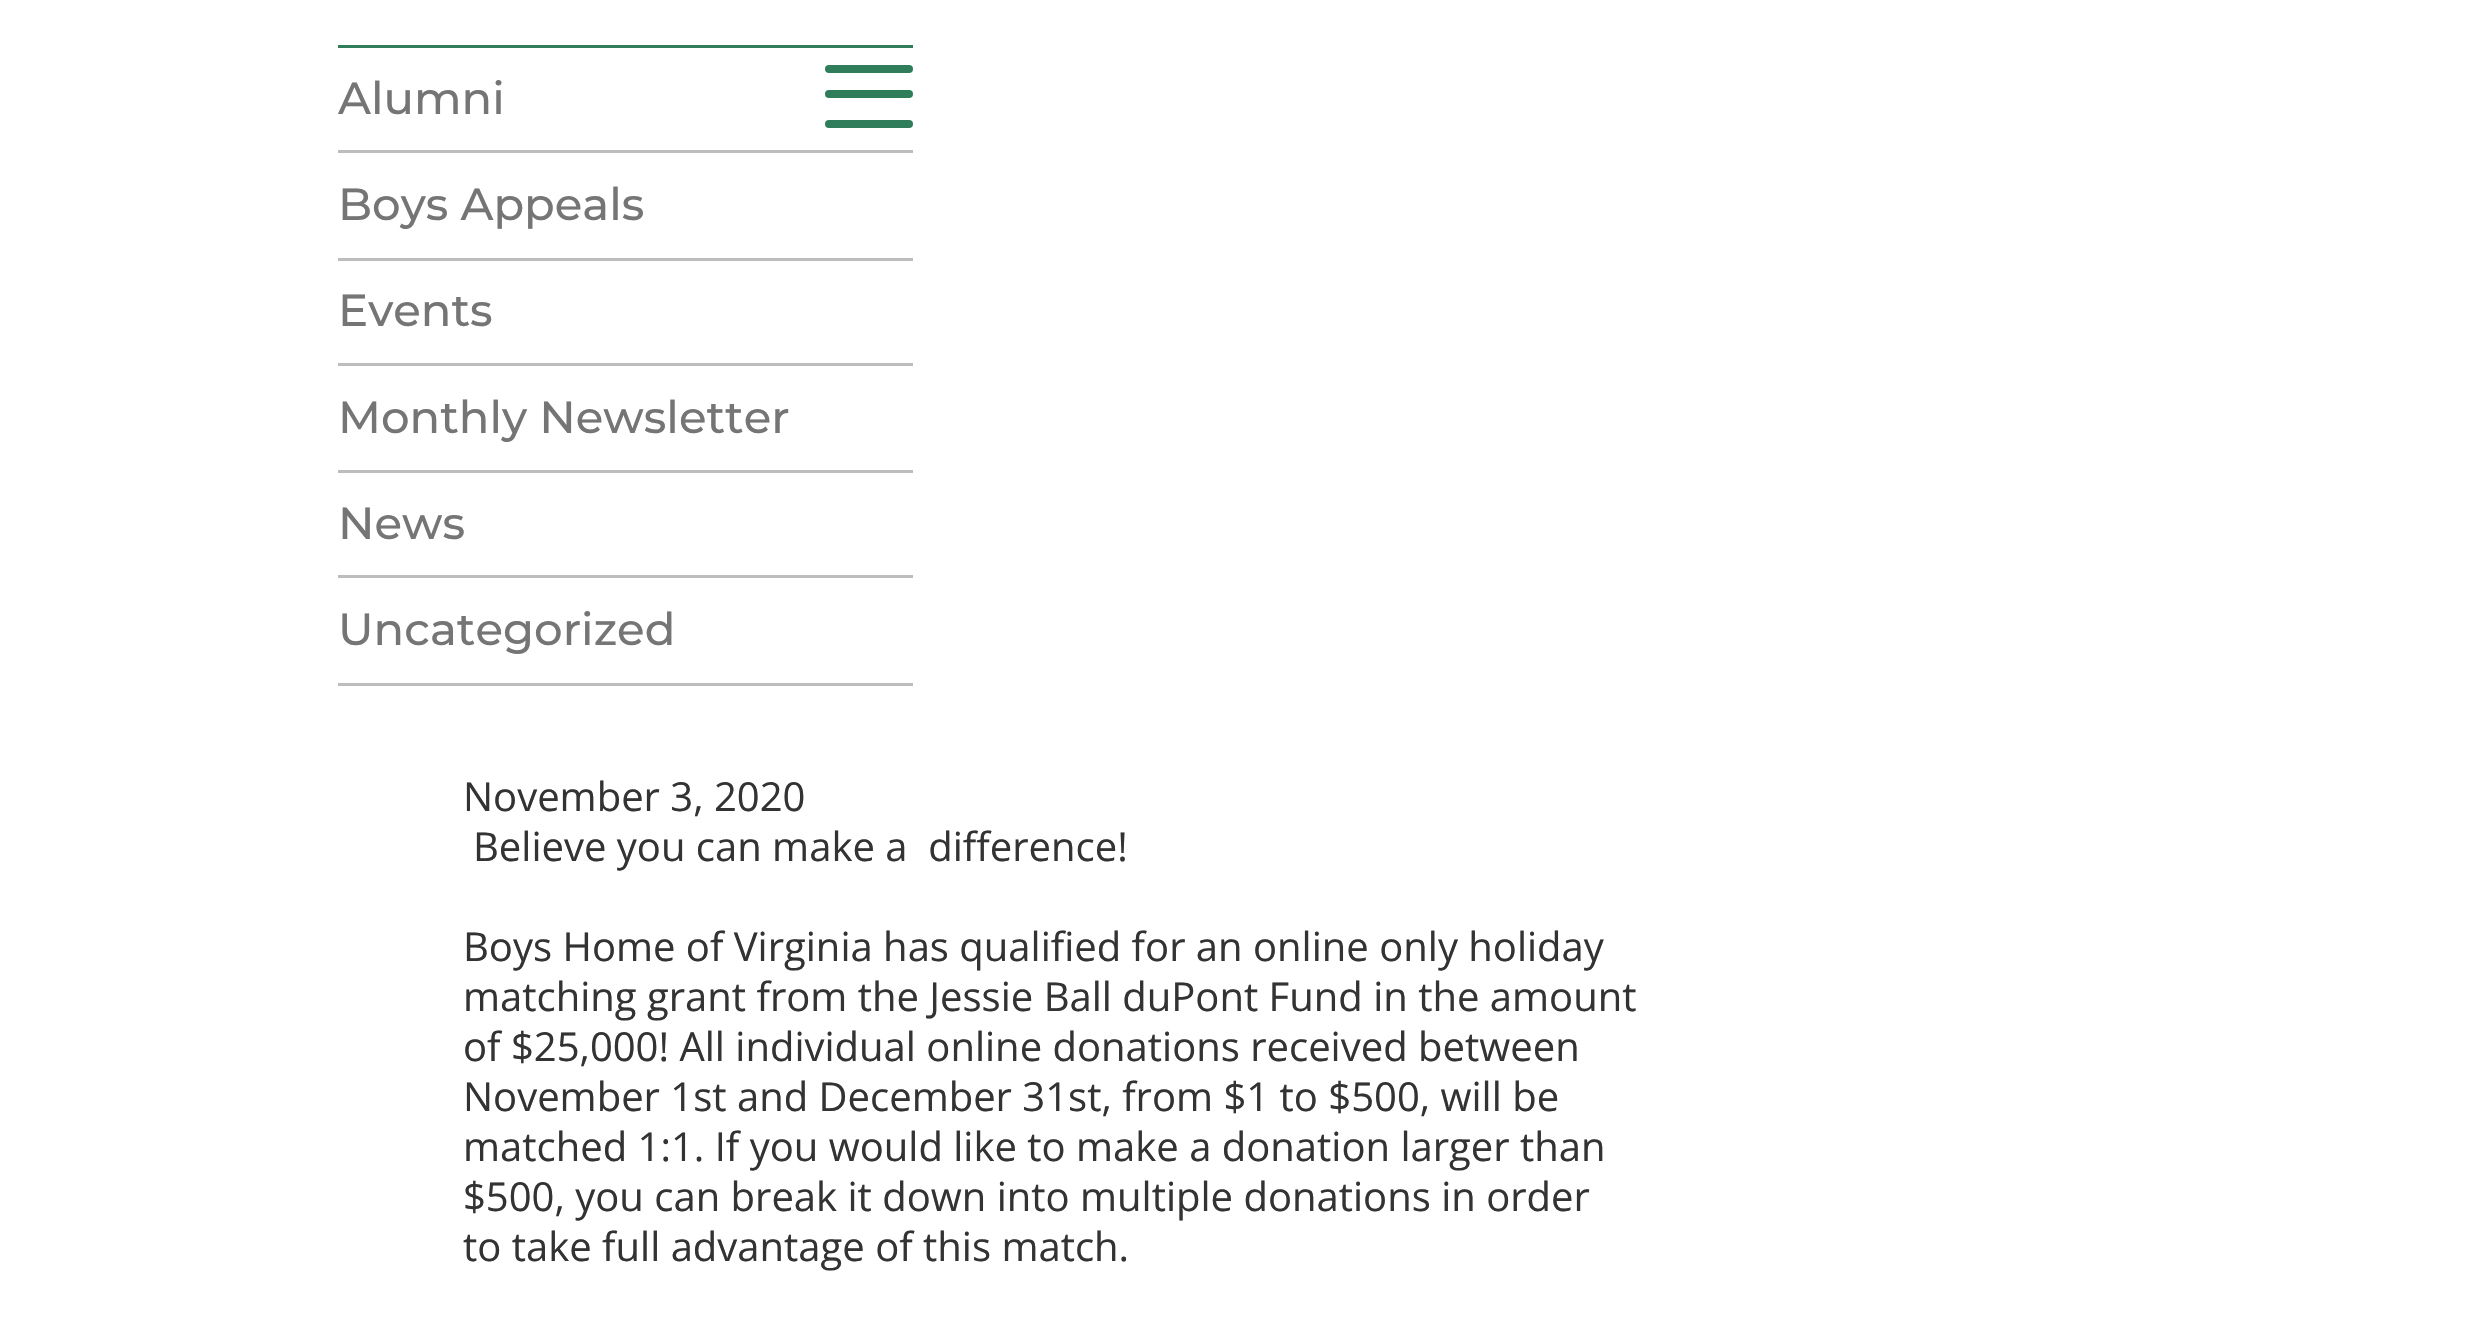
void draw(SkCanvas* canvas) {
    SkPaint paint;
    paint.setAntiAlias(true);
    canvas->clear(0xFFFFFFFF);
    paint.setColor(0xFF307D5B);
    canvas->drawRect(SkRect::MakeXYWH(338, 45, 575, 3), paint);
    canvas->drawRoundRect(SkRect::MakeXYWH(825, 65, 88, 8), 4, 4, paint);
    canvas->drawRoundRect(SkRect::MakeXYWH(825, 90, 88, 8), 4, 4, paint);
    canvas->drawRoundRect(SkRect::MakeXYWH(825, 120, 88, 8), 4, 4, paint);
    SkFont font1(fontMgr->matchFamilyStyle("Montserrat", SkFontStyle(500, SkFontStyle::kNormal_Width, SkFontStyle::kUpright_Slant)), 45);
    font1.setSubpixel(true);
    paint.setColor(0xFF757575);
    canvas->drawString("Alumni", 338, 114, font1, paint);
    paint.setColor(0xFFBDBDBD);
    canvas->drawRect(SkRect::MakeXYWH(338, 150, 575, 3), paint);
    paint.setColor(0xFF757575);
    canvas->drawString("Boys Appeals", 338, 220, font1, paint);
    paint.setColor(0xFFBDBDBD);
    canvas->drawRect(SkRect::MakeXYWH(338, 258, 575, 3), paint);
    paint.setColor(0xFF757575);
    canvas->drawString("Events", 338, 326, font1, paint);
    paint.setColor(0xFFBDBDBD);
    canvas->drawRect(SkRect::MakeXYWH(338, 363, 575, 3), paint);
    paint.setColor(0xFF757575);
    canvas->drawString("Monthly Newsletter", 338, 433, font1, paint);
    paint.setColor(0xFFBDBDBD);
    canvas->drawRect(SkRect::MakeXYWH(338, 470, 575, 3), paint);
    paint.setColor(0xFF757575);
    canvas->drawString("News", 338, 539, font1, paint);
    paint.setColor(0xFFBDBDBD);
    canvas->drawRect(SkRect::MakeXYWH(338, 575, 575, 3), paint);
    paint.setColor(0xFF757575);
    canvas->drawString("Uncategorized", 338, 645, font1, paint);
    paint.setColor(0xFFBDBDBD);
    canvas->drawRect(SkRect::MakeXYWH(338, 683, 575, 3), paint);
    SkFont font2(fontMgr->matchFamilyStyle("Open Sans", SkFontStyle::Normal()), 40);
    font2.setSubpixel(true);
    paint.setColor(0xFF333333);
    canvas->drawString("November 3, 2020", 463, 811, font2, paint);
    canvas->drawString("Believe you can make a  difference!", 473, 861, font2, paint);
    canvas->drawString("Boys Home of Virginia has qualified for an online only holiday", 463, 961, font2, paint);
    canvas->drawString("matching grant from the Jessie Ball duPont Fund in the amount", 463, 1011, font2, paint);
    canvas->drawString("of $25,000! All individual online donations received between", 463, 1061, font2, paint);
    canvas->drawString("November 1st and December 31st, from $1 to $500, will be", 463, 1111, font2, paint);
    canvas->drawString("matched 1:1. If you would like to make a donation larger than", 463, 1161, font2, paint);
    canvas->drawString("$500, you can break it down into multiple donations in order", 463, 1211, font2, paint);
    canvas->drawString("to take full advantage of this match.", 463, 1261, font2, paint);
}
